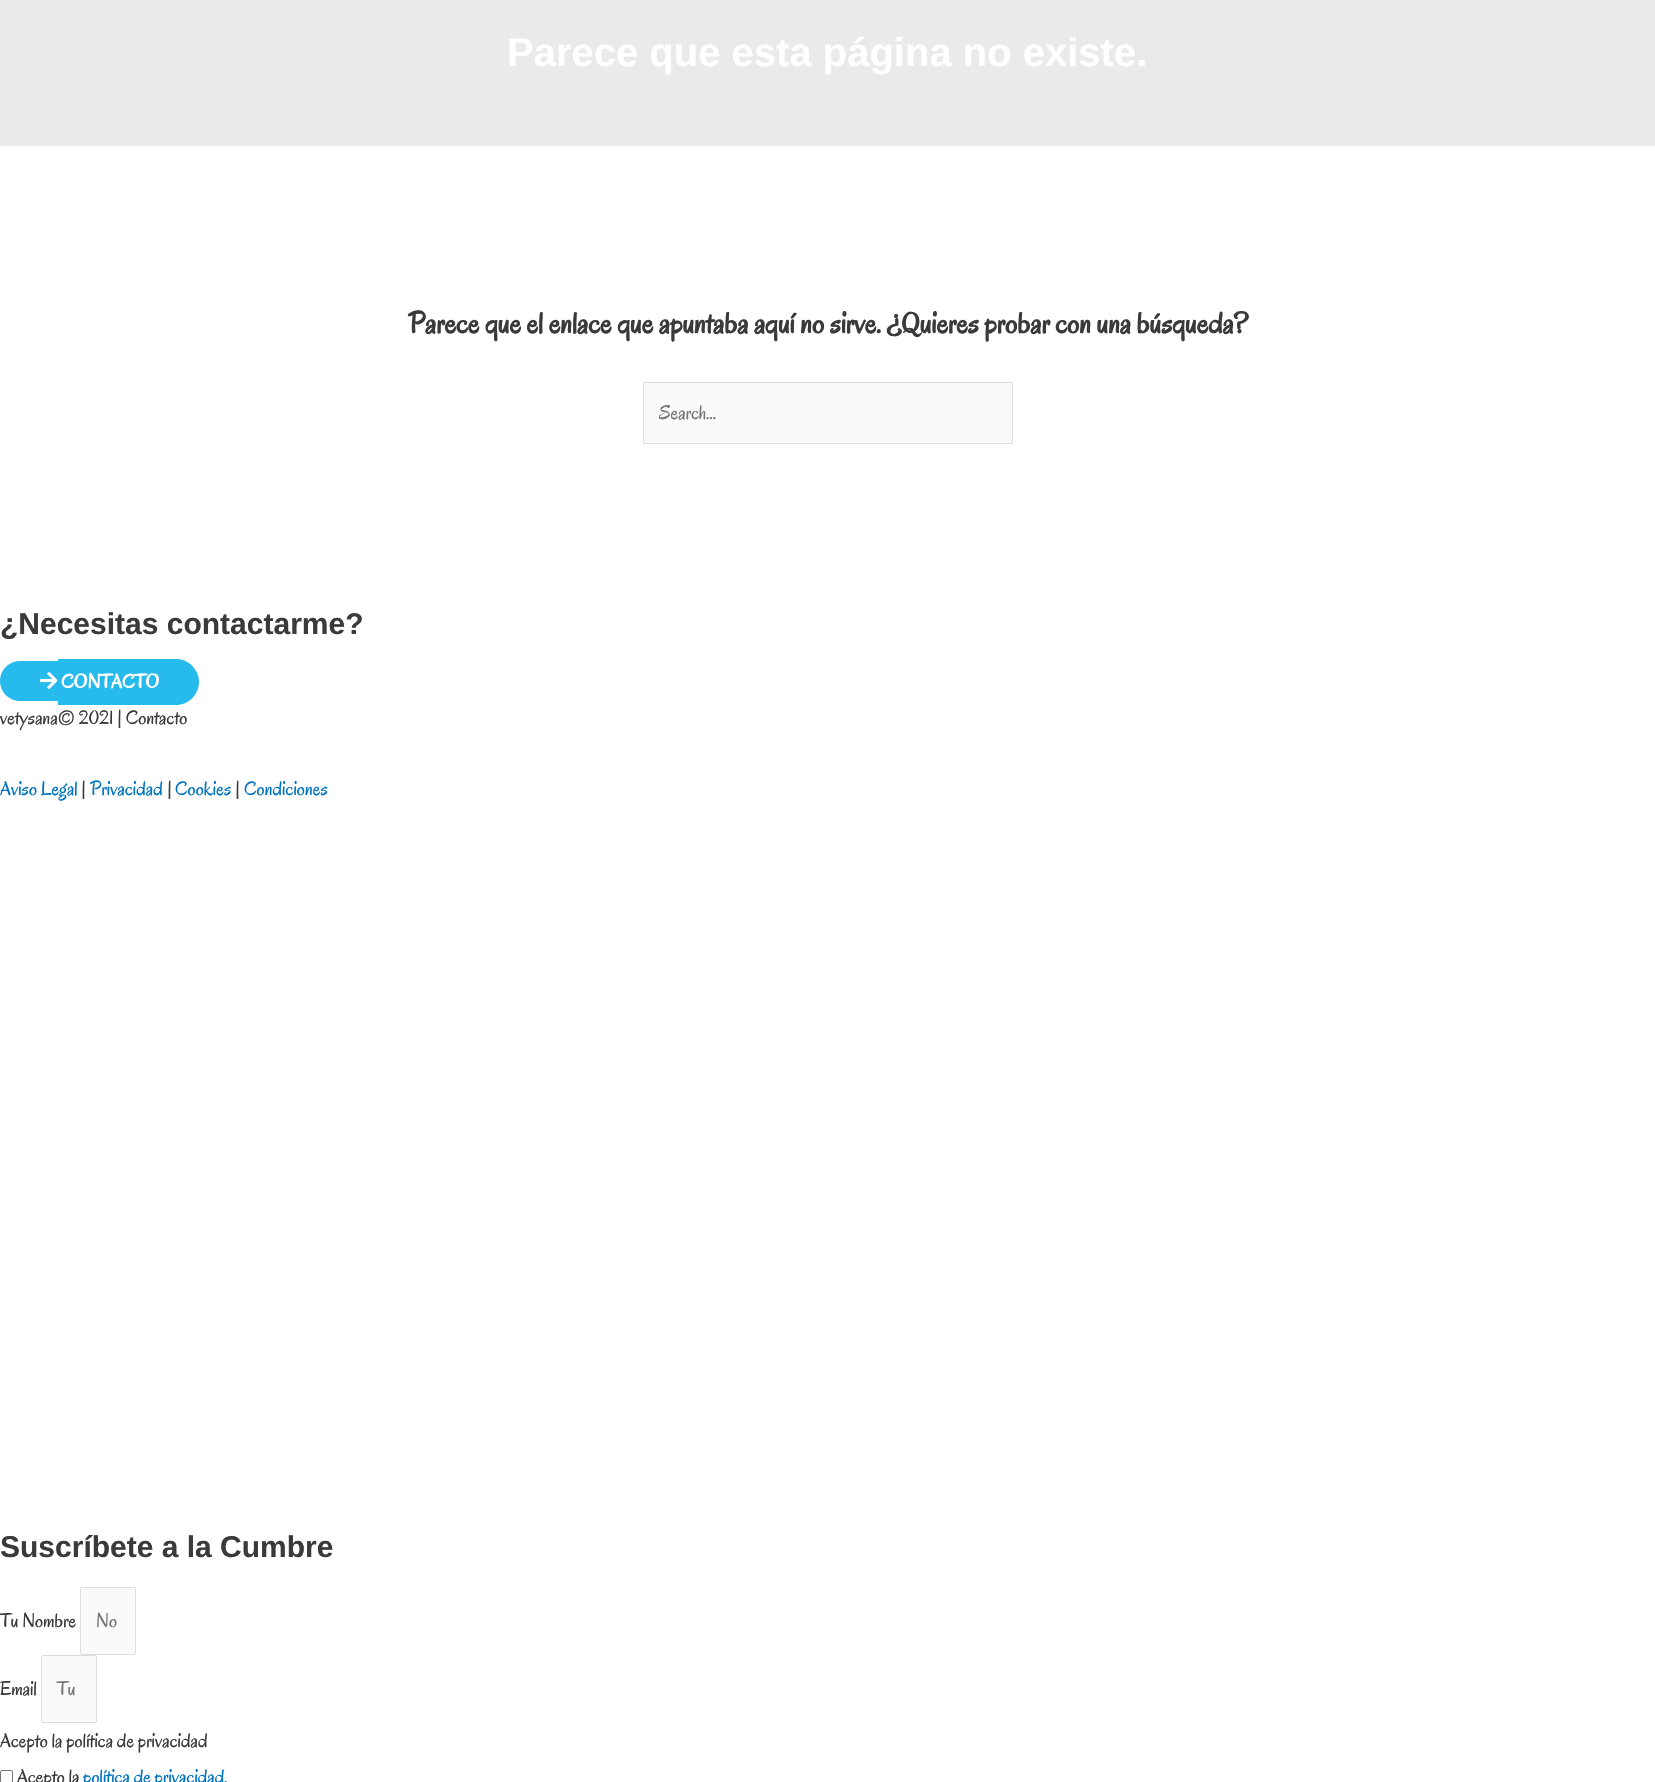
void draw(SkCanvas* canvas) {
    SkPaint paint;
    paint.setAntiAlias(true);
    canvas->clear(0xFFFFFFFF);
    paint.setColor(0xFFEAEAEA);
    canvas->drawRect(SkRect::MakeXYWH(0, 0, 1655, 146), paint);
    SkFont font1(fontMgr->matchFamilyStyle("Liberation Sans", SkFontStyle::Bold()), 40);
    font1.setSubpixel(true);
    paint.setColor(0xFFFFFFFF);
    canvas->drawString("Parece que esta página no existe.", 507, 66, font1, paint);
    SkFont font2(fontMgr->matchFamilyStyle("Oregano", SkFontStyle::Bold()), 30);
    font2.setSubpixel(true);
    paint.setColor(0xFF3A3A3A);
    canvas->drawString("Parece que el enlace que apuntaba aquí no sirve. ¿Quieres probar con una búsqueda?", 408, 333, font2, paint);
    paint.setColor(0xFFFAFAFA);
    canvas->drawRoundRect(SkRect::MakeXYWH(643.5f, 382.5f, 369, 61), 1.5f, 1.5f, paint);
    paint.setStyle(SkPaint::kStroke_Style);
    paint.setStrokeWidth(1);
    paint.setColor(0xFFDDDDDD);
    canvas->drawRoundRect(SkRect::MakeXYWH(643.5f, 382.5f, 369, 61), 1.5f, 1.5f, paint);
    canvas->save();
    canvas->clipRect(SkRect::MakeXYWH(659, 400, 304, 26));
    SkFont font3(fontMgr->matchFamilyStyle("Oregano", SkFontStyle::Normal()), 20);
    font3.setSubpixel(true);
    paint.setStyle(SkPaint::kFill_Style);
    paint.setColor(0xFF757575);
    canvas->drawString("Search...", 659, 419, font3, paint);
    canvas->restore();
    SkFont font4(fontMgr->matchFamilyStyle("Liberation Sans", SkFontStyle::Bold()), 30);
    font4.setSubpixel(true);
    paint.setColor(0xFF3A3A3A);
    canvas->drawString("¿Necesitas contactarme?", 0, 634, font4, paint);
    paint.setColor(0xFF26BBEC);
    canvas->drawPath(SkPathBuilder().moveTo(20, 661).lineTo(58, 661).lineTo(58, 701).lineTo(20, 701).cubicTo(9, 701, 0, 692, 0, 681).cubicTo(0, 670, 9, 661, 20, 661).close().detach(), paint);
    canvas->drawRect(SkRect::MakeXYWH(58, 659, 3, 46), paint);
    canvas->drawPath(SkPathBuilder().moveTo(61, 659).lineTo(176, 659).cubicTo(188.5f, 659, 199, 669.5f, 199, 682).cubicTo(199, 694.5f, 188.5f, 705, 176, 705).lineTo(61, 705).close().detach(), paint);
    canvas->drawImageRect(SkImages::DeferredFromEncodedData(SkData::MakeFromFileName("img1.png")), SkRect::MakeXYWH(40, 672, 18, 17), SkSamplingOptions());
    SkFont font5(fontMgr->matchFamilyStyle("Oregano", SkFontStyle::Bold()), 20);
    font5.setSubpixel(true);
    paint.setColor(0xFFFFFFFF);
    canvas->drawString("CONTACTO", 61, 688, font5, paint);
    paint.setColor(0xFF3A3A3A);
    canvas->drawString("vetysana© 2021 | Contacto", 0, 724, font3, paint);
    paint.setColor(0xFF0274BE);
    canvas->drawString("Aviso Legal", 0, 795, font3, paint);
    paint.setColor(0xFF3A3A3A);
    canvas->drawString("|", 81, 795, font3, paint);
    paint.setColor(0xFF0274BE);
    canvas->drawString("Privacidad", 90, 795, font3, paint);
    paint.setColor(0xFF3A3A3A);
    canvas->drawString("|", 167, 795, font3, paint);
    paint.setColor(0xFF0274BE);
    canvas->drawString("Cookies", 175, 795, font3, paint);
    paint.setColor(0xFF3A3A3A);
    canvas->drawString("|", 235, 795, font3, paint);
    paint.setColor(0xFF0274BE);
    canvas->drawString("Condiciones", 244, 795, font3, paint);
    paint.setColor(0xFF3A3A3A);
    canvas->drawString("Suscríbete a la Cumbre", 0, 1557, font4, paint);
    canvas->drawString("Tu Nombre", 0, 1627, font3, paint);
    paint.setColor(0xFFFAFAFA);
    canvas->drawRoundRect(SkRect::MakeXYWH(80.5f, 1587.5f, 55, 67), 1.5f, 1.5f, paint);
    paint.setStyle(SkPaint::kStroke_Style);
    paint.setColor(0xFFDDDDDD);
    canvas->drawRoundRect(SkRect::MakeXYWH(80.5f, 1587.5f, 55, 67), 1.5f, 1.5f, paint);
    paint.setStyle(SkPaint::kFill_Style);
    paint.setColor(0xFF757575);
    canvas->drawString("No", 96, 1627, font3, paint);
    paint.setColor(0xFF3A3A3A);
    canvas->drawString("Email", 0, 1695, font3, paint);
    paint.setColor(0xFFFAFAFA);
    canvas->drawRoundRect(SkRect::MakeXYWH(41.5f, 1655.5f, 55, 67), 1.5f, 1.5f, paint);
    paint.setStyle(SkPaint::kStroke_Style);
    paint.setColor(0xFFDDDDDD);
    canvas->drawRoundRect(SkRect::MakeXYWH(41.5f, 1655.5f, 55, 67), 1.5f, 1.5f, paint);
    paint.setStyle(SkPaint::kFill_Style);
    paint.setColor(0xFF757575);
    canvas->drawString("Tu", 57, 1695, font3, paint);
    paint.setColor(0xFF3A3A3A);
    canvas->drawString("Acepto la política de privacidad", 0, 1747, font3, paint);
    paint.setStyle(SkPaint::kStroke_Style);
    paint.setColor(0xFF767676);
    canvas->drawRoundRect(SkRect::MakeXYWH(0.5f, 1770.5f, 12, 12), 1.5f, 1.5f, paint);
    paint.setStyle(SkPaint::kFill_Style);
    paint.setColor(0xFF3A3A3A);
    canvas->drawString("Acepto la", 17, 1783, font3, paint);
    paint.setColor(0xFF0274BE);
    canvas->drawString("política de privacidad.", 83, 1783, font3, paint);
}
